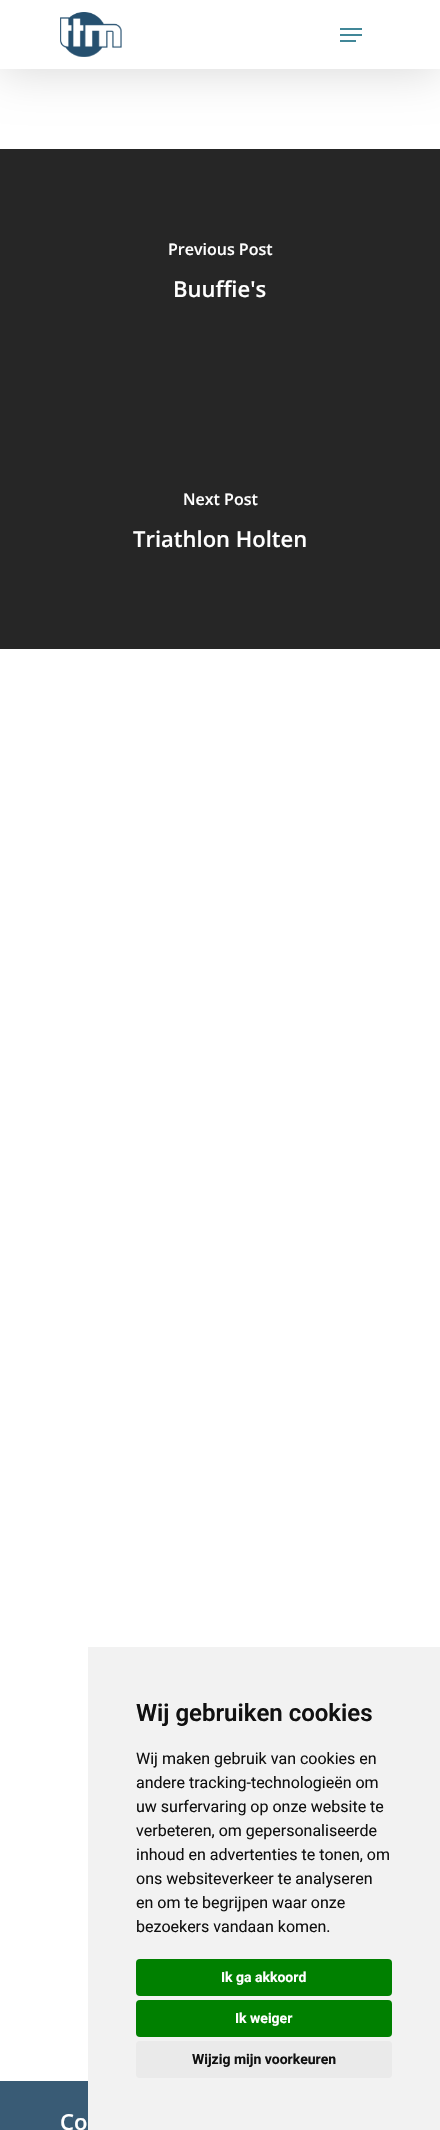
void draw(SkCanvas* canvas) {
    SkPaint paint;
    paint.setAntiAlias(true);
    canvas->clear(0xFFFFFFFF);
    paint.setColor(0x26000000);
    paint.setMaskFilter(SkMaskFilter::MakeBlur(kNormal_SkBlurStyle, 22.5f));
    canvas->drawRect(SkRect::MakeXYWH(0, 3, 440, 69), paint);
    paint.setMaskFilter(nullptr);
    paint.setColor(0xFFFFFFFF);
    canvas->drawRect(SkRect::MakeXYWH(0, 0, 440, 69), paint);
    canvas->drawImageRect(SkImages::DeferredFromEncodedData(SkData::MakeFromFileName("img1.png")), SkRect::MakeXYWH(60, 12, 62, 45), SkSamplingOptions());
    paint.setColor(0xFF418798);
    canvas->drawRect(SkRect::MakeXYWH(340, 28, 22, 2), paint);
    canvas->drawRect(SkRect::MakeXYWH(340, 40, 16, 2), paint);
    canvas->drawRect(SkRect::MakeXYWH(340, 34, 22, 2), paint);
    paint.setColor(0xFF262626);
    canvas->drawRect(SkRect::MakeXYWH(0, 149, 440, 500), paint);
    SkFont font1(fontMgr->matchFamilyStyle("Open Sans", SkFontStyle(600, SkFontStyle::kNormal_Width, SkFontStyle::kUpright_Slant)), 16);
    font1.setSubpixel(true);
    paint.setColor(0xFFFFFFFF);
    canvas->drawString("Previous Post", 168, 255, font1, paint);
    SkFont font2(fontMgr->matchFamilyStyle("Open Sans", SkFontStyle(600, SkFontStyle::kNormal_Width, SkFontStyle::kUpright_Slant)), 22);
    font2.setSubpixel(true);
    canvas->drawString("Buuffie's", 173, 297, font2, paint);
    canvas->drawString("Next Post", 183, 505, font1, paint);
    canvas->drawString("Triathlon Holten", 133, 547, font2, paint);
    paint.setColor(0xFF395B75);
    canvas->drawRect(SkRect::MakeXYWH(0, 2081, 88, 49), paint);
    paint.setColor(0xFFFFFFFF);
    canvas->drawString("Co", 60, 2130, font2, paint);
    paint.setColor(0xFFF2F2F2);
    canvas->drawRect(SkRect::MakeXYWH(88, 1647, 352, 483), paint);
    SkFont font3(fontMgr->matchFamilyStyle("Roboto", SkFontStyle(600, SkFontStyle::kNormal_Width, SkFontStyle::kUpright_Slant)), 24);
    font3.setSubpixel(true);
    paint.setColor(0xFF111111);
    canvas->drawString("Wij gebruiken cookies", 136, 1721, font3, paint);
    SkFont font4(fontMgr->matchFamilyStyle("Roboto", SkFontStyle::Normal()), 16);
    font4.setSubpixel(true);
    canvas->drawString("Wij maken gebruik van cookies en", 136, 1764, font4, paint);
    canvas->drawString("andere tracking-technologieën om", 136, 1788, font4, paint);
    canvas->drawString("uw surfervaring op onze website te", 136, 1812, font4, paint);
    canvas->drawString("verbeteren, om gepersonaliseerde", 136, 1836, font4, paint);
    canvas->drawString("inhoud en advertenties te tonen, om", 136, 1860, font4, paint);
    canvas->drawString("ons websiteverkeer te analyseren", 136, 1884, font4, paint);
    canvas->drawString("en om te begrijpen waar onze", 136, 1908, font4, paint);
    canvas->drawString("bezoekers vandaan komen.", 136, 1932, font4, paint);
    paint.setColor(0xFF008000);
    canvas->drawRoundRect(SkRect::MakeXYWH(136, 1959, 256, 37), 4, 4, paint);
    SkFont font5(fontMgr->matchFamilyStyle("Roboto", SkFontStyle::Bold()), 14);
    font5.setSubpixel(true);
    paint.setColor(0xFFFFFFFF);
    canvas->drawString("Ik ga akkoord", 221, 1982, font5, paint);
    paint.setColor(0xFF008000);
    canvas->drawRoundRect(SkRect::MakeXYWH(136, 2000, 256, 37), 4, 4, paint);
    paint.setColor(0xFFFFFFFF);
    canvas->drawString("Ik weiger", 235, 2023, font5, paint);
    paint.setColor(0xFFEAEAEA);
    canvas->drawRoundRect(SkRect::MakeXYWH(136, 2041, 256, 37), 4, 4, paint);
    paint.setColor(0xFF111111);
    canvas->drawString("Wijzig mijn voorkeuren", 192, 2064, font5, paint);
}
